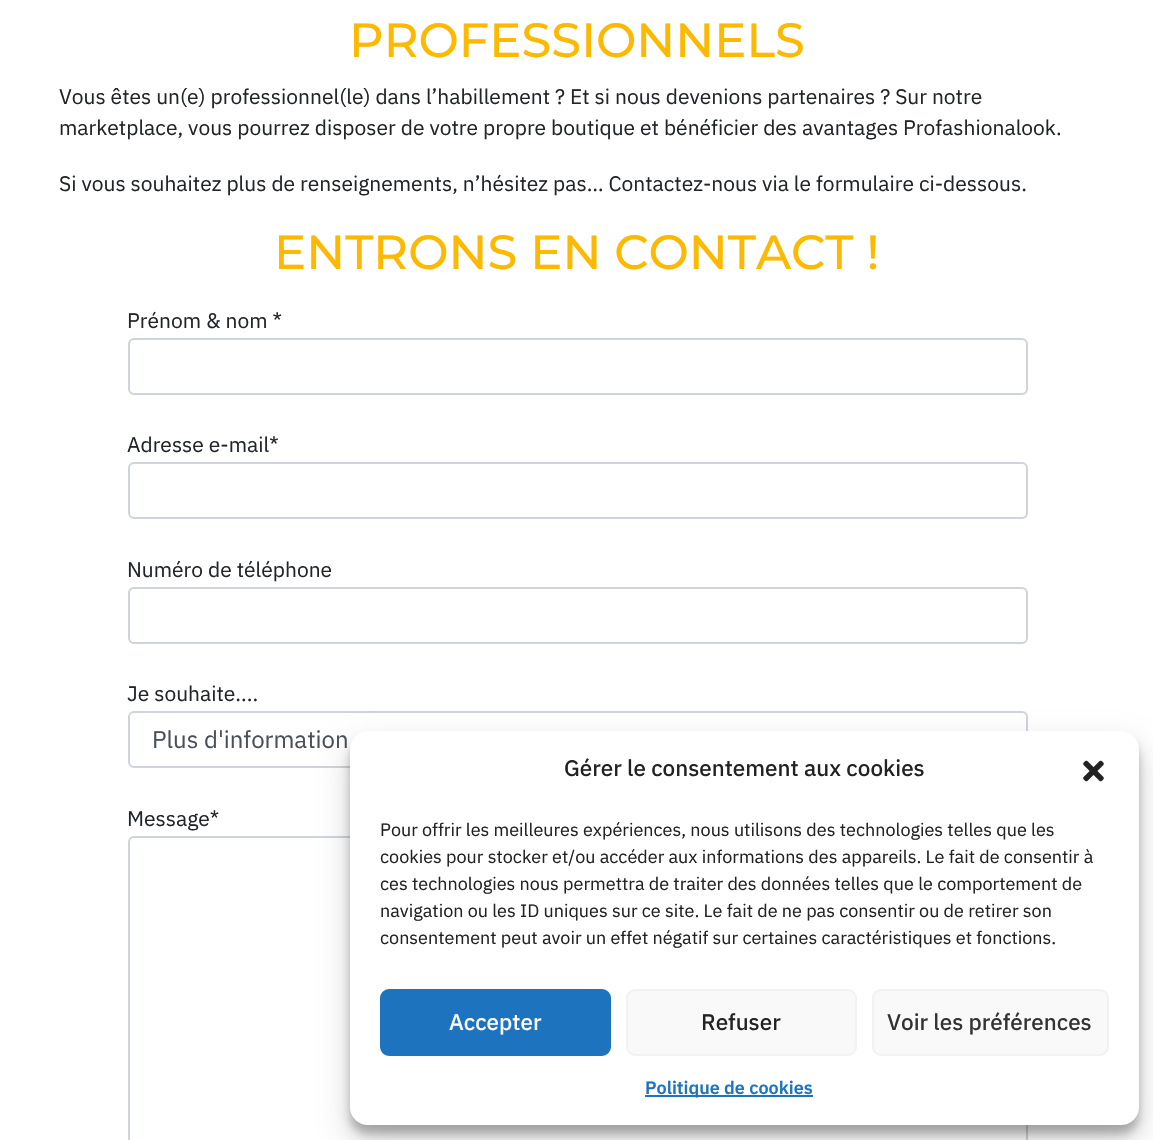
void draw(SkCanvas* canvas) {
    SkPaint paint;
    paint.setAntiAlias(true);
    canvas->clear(0xFFFFFFFF);
    SkFont font1(fontMgr->matchFamilyStyle("Montserrat", SkFontStyle(500, SkFontStyle::kNormal_Width, SkFontStyle::kUpright_Slant)), 48);
    font1.setSubpixel(true);
    paint.setColor(0xFFFCB900);
    canvas->drawString("PROFESSIONNELS", 349, 57, font1, paint);
    SkFont font2(fontMgr->matchFamilyStyle("Anuphan", SkFontStyle::Normal()), 21);
    font2.setSubpixel(true);
    paint.setColor(0xFF212529);
    canvas->drawString("Vous êtes un(e) professionnel(le) dans l’habillement ? Et si nous devenions partenaires ? Sur notre", 59, 104, font2, paint);
    canvas->drawString("marketplace, vous pourrez disposer de votre propre boutique et bénéficier des avantages Profashionalook.", 59, 135, font2, paint);
    canvas->drawString("Si vous souhaitez plus de renseignements, n’hésitez pas… Contactez-nous via le formulaire ci-dessous.", 59, 191, font2, paint);
    paint.setColor(0xFFFCB900);
    canvas->drawString("ENTRONS EN CONTACT !", 274, 269, font1, paint);
    paint.setColor(0xFF212529);
    canvas->drawString("Prénom & nom *", 127, 328, font2, paint);
    paint.setStyle(SkPaint::kStroke_Style);
    paint.setStrokeWidth(2);
    paint.setColor(0xFFCED4DA);
    canvas->drawRoundRect(SkRect::MakeXYWH(129, 339, 898, 55), 5, 5, paint);
    paint.setStyle(SkPaint::kFill_Style);
    paint.setColor(0xFF212529);
    canvas->drawString("Adresse e-mail*", 127, 452, font2, paint);
    paint.setStyle(SkPaint::kStroke_Style);
    paint.setColor(0xFFCED4DA);
    canvas->drawRoundRect(SkRect::MakeXYWH(129, 463, 898, 55), 5, 5, paint);
    paint.setStyle(SkPaint::kFill_Style);
    paint.setColor(0xFF212529);
    canvas->drawString("Numéro de téléphone", 127, 577, font2, paint);
    paint.setStyle(SkPaint::kStroke_Style);
    paint.setColor(0xFFCED4DA);
    canvas->drawRoundRect(SkRect::MakeXYWH(129, 588, 898, 55), 5, 5, paint);
    paint.setStyle(SkPaint::kFill_Style);
    paint.setColor(0xFF212529);
    canvas->drawString("Je souhaite....", 127, 701, font2, paint);
    paint.setStyle(SkPaint::kStroke_Style);
    paint.setColor(0xFFCED4DA);
    canvas->drawRoundRect(SkRect::MakeXYWH(129, 712, 898, 55), 5, 5, paint);
    SkFont font3(fontMgr->matchFamilyStyle("Anuphan", SkFontStyle::Normal()), 24);
    font3.setSubpixel(true);
    paint.setStyle(SkPaint::kFill_Style);
    paint.setColor(0xFF495057);
    canvas->drawString("Plus d'information", 152, 748, font3, paint);
    paint.setColor(0xFF212529);
    canvas->drawString("Message*", 127, 826, font2, paint);
    paint.setStyle(SkPaint::kStroke_Style);
    paint.setColor(0xFFCED4DA);
    canvas->drawRoundRect(SkRect::MakeXYWH(129, 837, 898, 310), 5, 5, paint);
    paint.setStyle(SkPaint::kFill_Style);
    paint.setColor(0x3B000000);
    paint.setMaskFilter(SkMaskFilter::MakeBlur(kNormal_SkBlurStyle, 4.5f));
    canvas->drawRoundRect(SkRect::MakeXYWH(350, 740, 789, 394), 18, 18, paint);
    paint.setMaskFilter(nullptr);
    paint.setColor(0x30000000);
    paint.setMaskFilter(SkMaskFilter::MakeBlur(kNormal_SkBlurStyle, 15));
    canvas->drawRoundRect(SkRect::MakeXYWH(350, 746, 789, 394), 18, 18, paint);
    paint.setMaskFilter(nullptr);
    paint.setColor(0xFFFFFFFF);
    canvas->drawRoundRect(SkRect::MakeXYWH(350, 731, 789, 394), 18, 18, paint);
    SkFont font4(fontMgr->matchFamilyStyle("Anuphan", SkFontStyle(500, SkFontStyle::kNormal_Width, SkFontStyle::kUpright_Slant)), 22.5f);
    font4.setSubpixel(true);
    paint.setColor(0xFF222222);
    canvas->drawString("Gérer le consentement aux cookies", 564, 776, font4, paint);
    canvas->drawImageRect(SkImages::DeferredFromEncodedData(SkData::MakeFromFileName("img1.png")), SkRect::MakeXYWH(1083, 760, 21, 22), SkSamplingOptions());
    SkFont font5(fontMgr->matchFamilyStyle("Anuphan", SkFontStyle::Normal()), 18);
    font5.setSubpixel(true);
    canvas->drawString("Pour offrir les meilleures expériences, nous utilisons des technologies telles que les", 380, 836, font5, paint);
    canvas->drawString("cookies pour stocker et/ou accéder aux informations des appareils. Le fait de consentir à", 380, 863, font5, paint);
    canvas->drawString("ces technologies nous permettra de traiter des données telles que le comportement de", 380, 890, font5, paint);
    canvas->drawString("navigation ou les ID uniques sur ce site. Le fait de ne pas consentir ou de retirer son", 380, 917, font5, paint);
    canvas->drawString("consentement peut avoir un effet négatif sur certaines caractéristiques et fonctions.", 380, 944, font5, paint);
    paint.setColor(0xFF1E73BE);
    canvas->drawRoundRect(SkRect::MakeXYWH(381, 990, 229, 65), 8, 8, paint);
    paint.setStyle(SkPaint::kStroke_Style);
    canvas->drawRoundRect(SkRect::MakeXYWH(381, 990, 229, 65), 8, 8, paint);
    paint.setStyle(SkPaint::kFill_Style);
    paint.setColor(0xFFFFFFFF);
    canvas->drawString("Accepter", 449, 1030, font4, paint);
    paint.setColor(0xFFF9F9F9);
    canvas->drawRoundRect(SkRect::MakeXYWH(627, 990, 229, 65), 8, 8, paint);
    paint.setStyle(SkPaint::kStroke_Style);
    paint.setColor(0xFFF2F2F2);
    canvas->drawRoundRect(SkRect::MakeXYWH(627, 990, 229, 65), 8, 8, paint);
    paint.setStyle(SkPaint::kFill_Style);
    paint.setColor(0xFF222222);
    canvas->drawString("Refuser", 701, 1030, font4, paint);
    paint.setColor(0xFFF9F9F9);
    canvas->drawRoundRect(SkRect::MakeXYWH(873, 990, 235, 65), 8, 8, paint);
    paint.setStyle(SkPaint::kStroke_Style);
    paint.setColor(0xFFF2F2F2);
    canvas->drawRoundRect(SkRect::MakeXYWH(873, 990, 235, 65), 8, 8, paint);
    paint.setStyle(SkPaint::kFill_Style);
    paint.setColor(0xFF333333);
    canvas->drawString("Voir les préférences", 887, 1030, font4, paint);
    paint.setColor(0xFF1E73BE);
    canvas->drawRect(SkRect::MakeXYWH(645, 1095, 168, 2), paint);
    SkFont font6(fontMgr->matchFamilyStyle("Anuphan", SkFontStyle(600, SkFontStyle::kNormal_Width, SkFontStyle::kUpright_Slant)), 18);
    font6.setSubpixel(true);
    canvas->drawString("Politique de cookies", 645, 1094, font6, paint);
}
